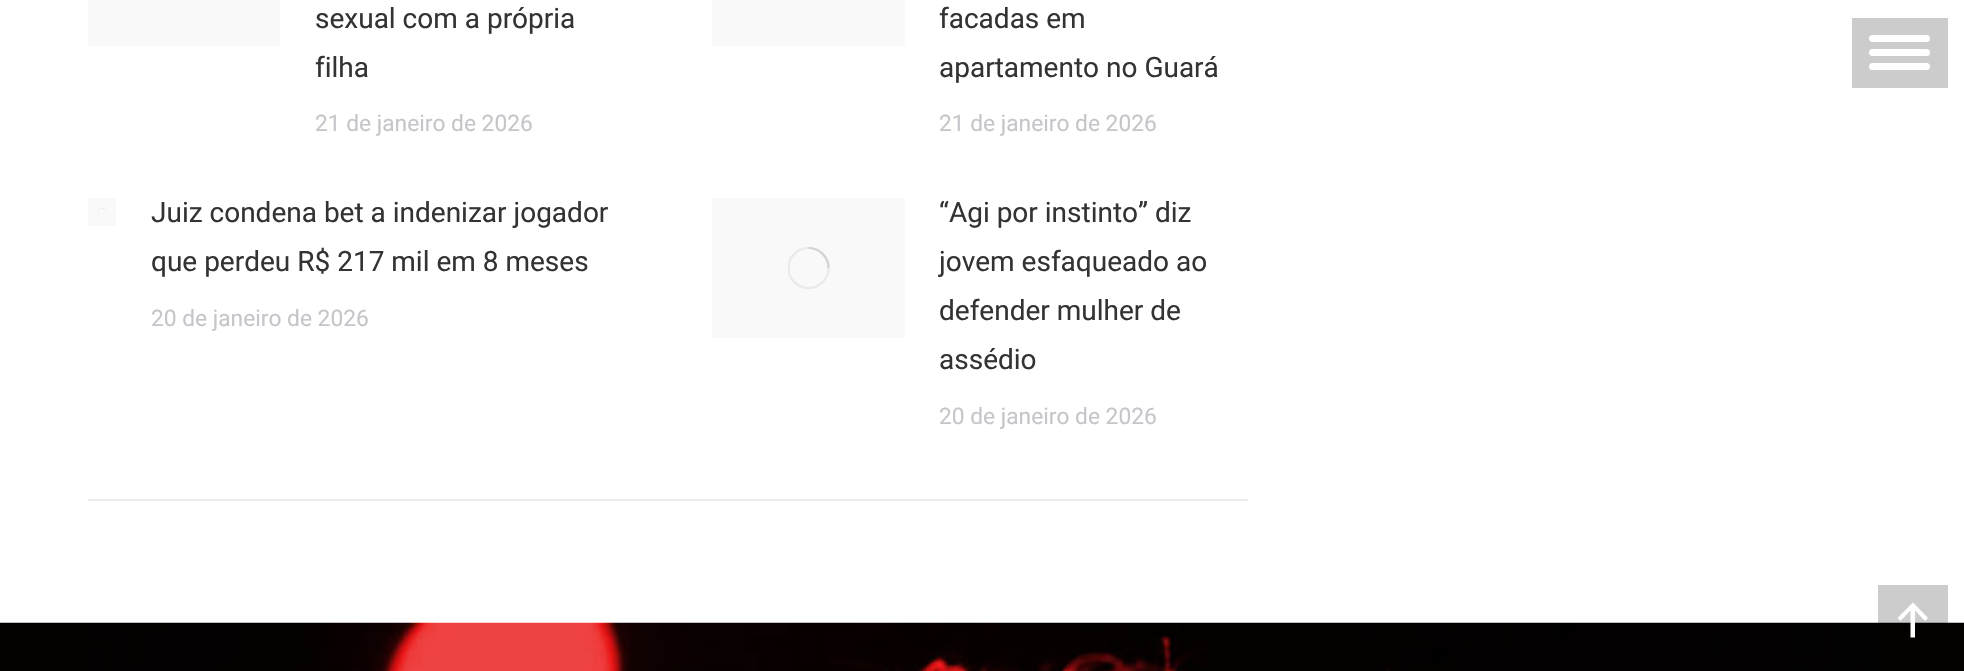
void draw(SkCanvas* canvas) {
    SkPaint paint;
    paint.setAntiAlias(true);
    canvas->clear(0xFFFFFFFF);
    paint.setColor(0xFFEBEBEB);
    canvas->drawRect(SkRect::MakeXYWH(88, 499, 1160, 2), paint);
    paint.setColor(0xFFF9F9FA);
    canvas->drawRect(SkRect::MakeXYWH(88, 0, 192, 46), paint);
    SkFont font1(fontMgr->matchFamilyStyle("Roboto", SkFontStyle::Normal()), 28);
    font1.setSubpixel(true);
    paint.setColor(0xFF333333);
    canvas->drawString("sexual com a própria", 315, 28, font1, paint);
    canvas->drawString("filha", 315, 77, font1, paint);
    SkFont font2(fontMgr->matchFamilyStyle("Roboto", SkFontStyle::Normal()), 22.75f);
    font2.setSubpixel(true);
    paint.setColor(0xFFC5C6CA);
    canvas->drawString("21 de janeiro de 2026", 315, 131, font2, paint);
    paint.setColor(0xFFF9F9FA);
    canvas->drawRect(SkRect::MakeXYWH(712, 0, 193, 46), paint);
    paint.setColor(0xFF333333);
    canvas->drawString("facadas em", 939, 28, font1, paint);
    canvas->drawString("apartamento no Guará", 939, 77, font1, paint);
    paint.setColor(0xFFC5C6CA);
    canvas->drawString("21 de janeiro de 2026", 939, 131, font2, paint);
    paint.setColor(0xFFF9F9FA);
    canvas->drawRect(SkRect::MakeXYWH(88, 198, 28, 28), paint);
    canvas->drawImageRect(SkImages::DeferredFromEncodedData(SkData::MakeFromFileName("img1.png")), SkRect::MakeXYWH(98, 208, 7, 7), SkSamplingOptions());
    paint.setColor(0xFF333333);
    canvas->drawString("Juiz condena bet a indenizar jogador", 151, 222, font1, paint);
    canvas->drawString("que perdeu R$ 217 mil em 8 meses", 151, 271, font1, paint);
    paint.setColor(0xFFC5C6CA);
    canvas->drawString("20 de janeiro de 2026", 151, 326, font2, paint);
    paint.setColor(0xFFF9F9FA);
    canvas->drawRect(SkRect::MakeXYWH(712, 198, 193, 140), paint);
    canvas->save();
    canvas->clipRect(SkRect::MakeXYWH(788, 247, 42, 42));
    paint.setStyle(SkPaint::kStroke_Style);
    paint.setStrokeWidth(2.2f);
    paint.setColor(0xFFEAEAEC);
    canvas->drawCircle(808.5f, 268, 20, paint);
    canvas->restore();
    paint.setColor(0x408B8D94);
    canvas->drawPath(SkPathBuilder().moveTo(828.5f, 268).cubicTo(828.5f, 257, 819.5f, 248, 808.5f, 248).detach(), paint);
    paint.setStyle(SkPaint::kFill_Style);
    paint.setColor(0xFF333333);
    canvas->drawString("“Agi por instinto” diz", 939, 222, font1, paint);
    canvas->drawString("jovem esfaqueado ao", 939, 271, font1, paint);
    canvas->drawString("defender mulher de", 939, 320, font1, paint);
    canvas->drawString("assédio", 939, 369, font1, paint);
    paint.setColor(0xFFC5C6CA);
    canvas->drawString("20 de janeiro de 2026", 939, 424, font2, paint);
    paint.setColor(0xFFCCCCCC);
    canvas->drawRect(SkRect::MakeXYWH(1852, 18, 96, 70), paint);
    paint.setColor(0xFFFFFFFF);
    canvas->drawRoundRect(SkRect::MakeXYWH(1869, 35, 61, 7), 3.5f, 3.5f, paint);
    canvas->drawRoundRect(SkRect::MakeXYWH(1869, 49, 61, 7), 3.5f, 3.5f, paint);
    canvas->drawRoundRect(SkRect::MakeXYWH(1869, 63, 61, 7), 3.5f, 3.5f, paint);
    canvas->drawImageRect(SkImages::DeferredFromEncodedData(SkData::MakeFromFileName("img2.png")), SkRect::MakeXYWH(0, 622, 1964, 49), SkSamplingOptions());
    paint.setColor(0x33000000);
    canvas->drawRect(SkRect::MakeXYWH(1878, 585, 70, 38), paint);
    paint.setColor(0xFFFFFFFF);
    canvas->drawPath(SkPathBuilder().moveTo(1897.5f, 618).lineTo(1900.5f, 621).lineTo(1910.5f, 610.5f).lineTo(1910.5f, 637.5f).lineTo(1915, 637.5f).lineTo(1915, 610.5f).lineTo(1925, 621).lineTo(1928, 618).lineTo(1913, 602.5f).close().detach(), paint);
}
